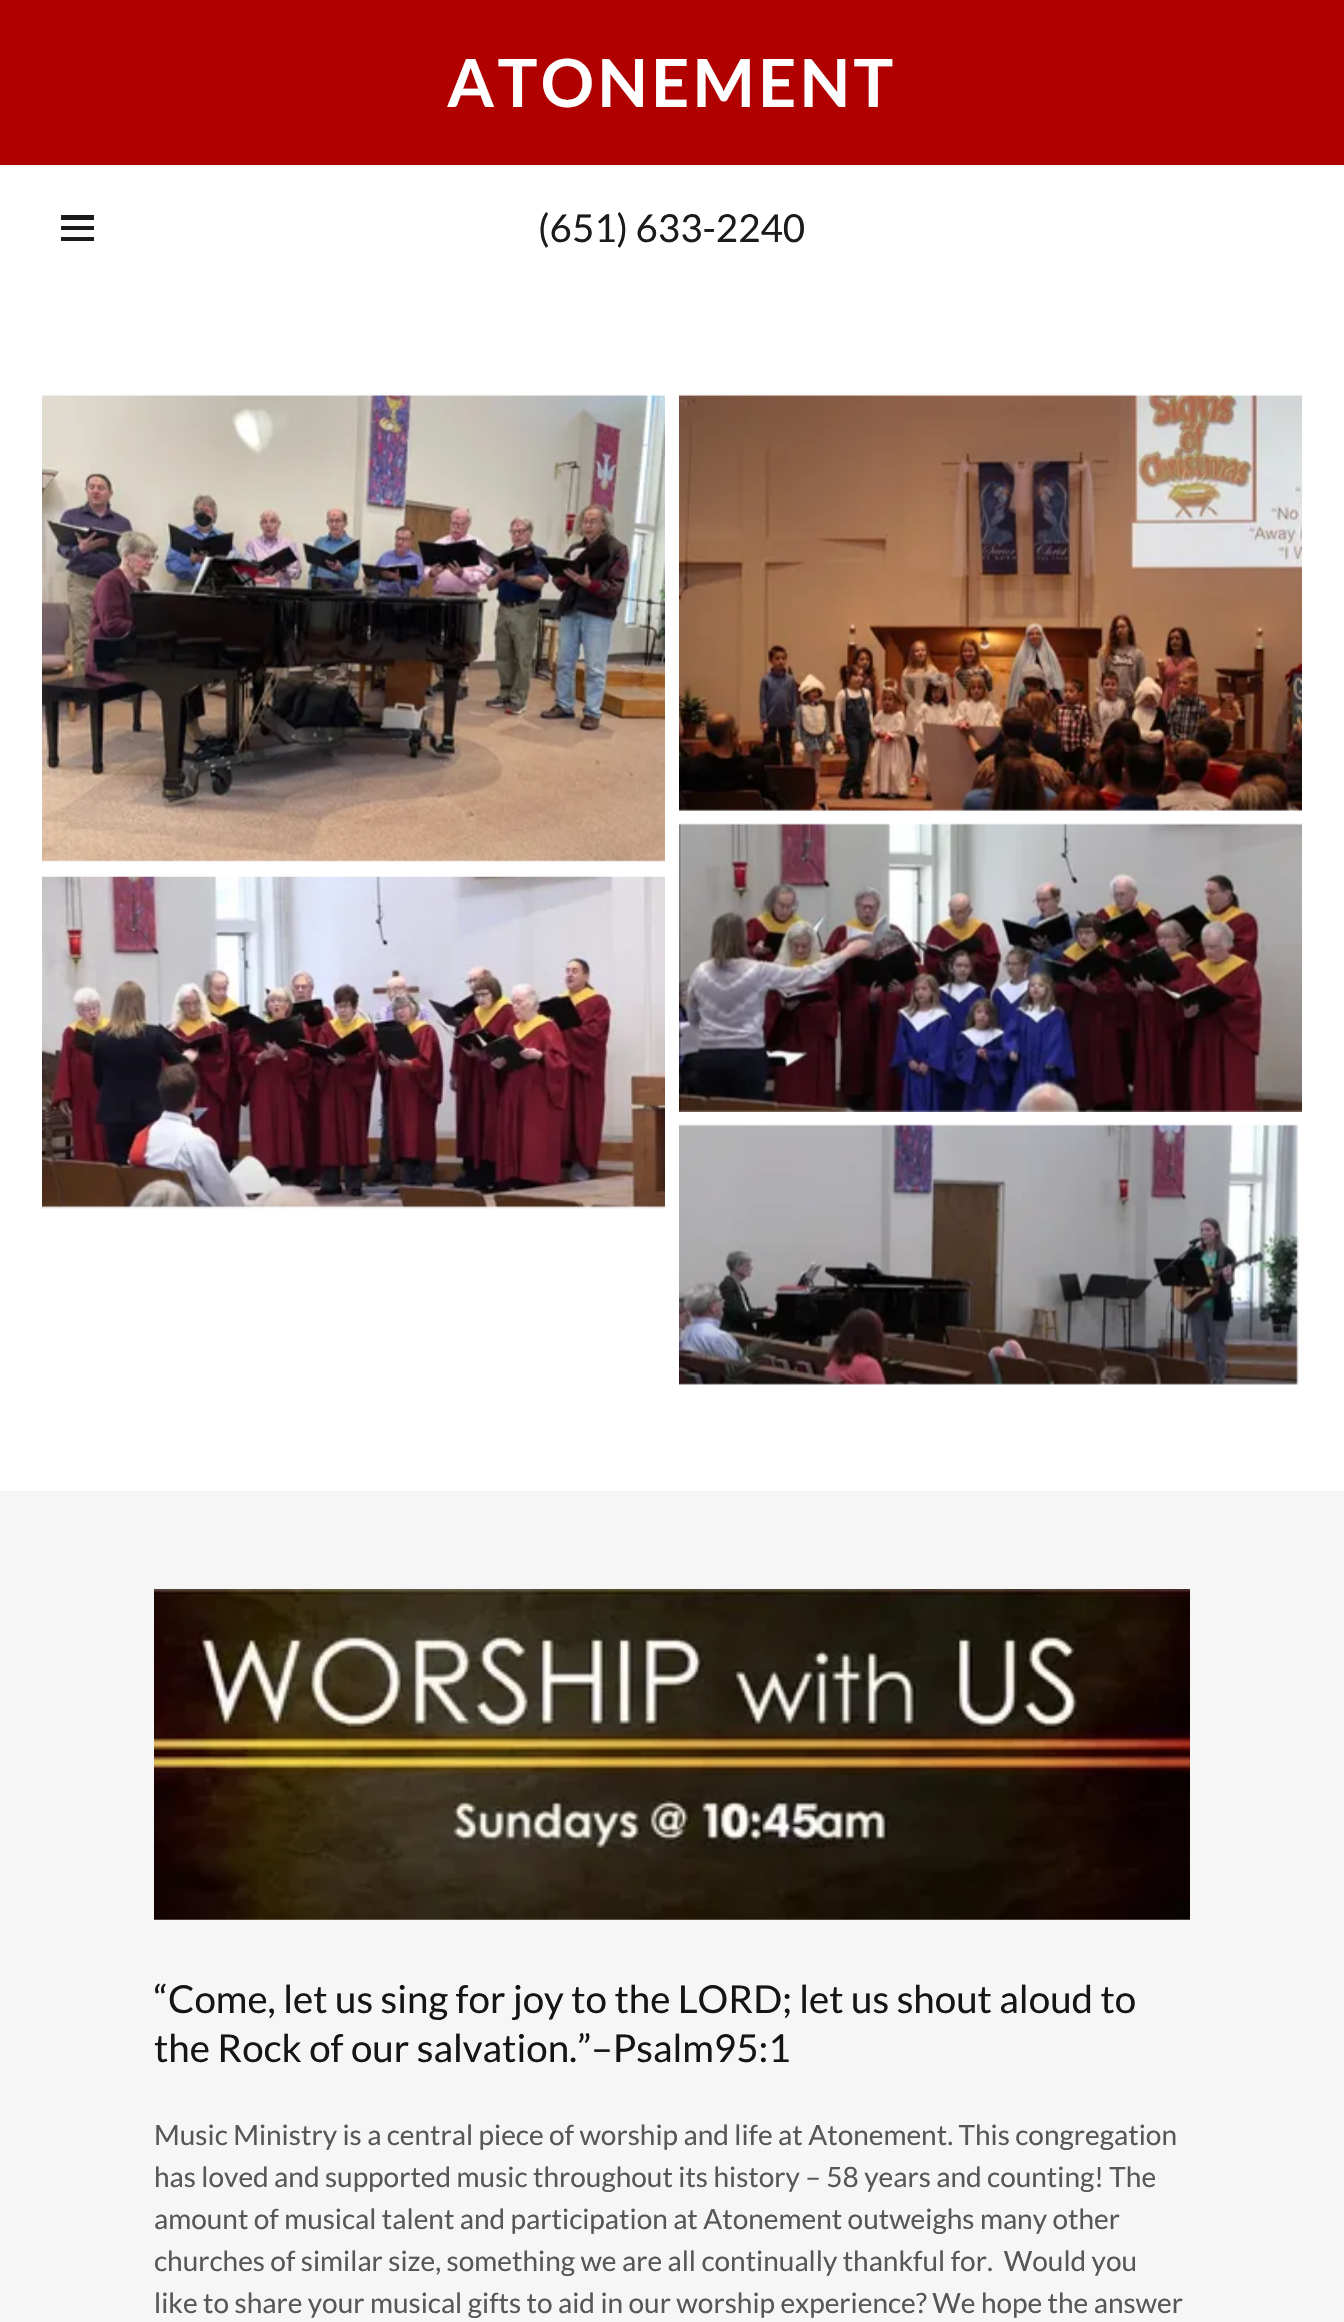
void draw(SkCanvas* canvas) {
    SkPaint paint;
    paint.setAntiAlias(true);
    auto spacedText = [&](const char* s, float x, float y, const SkFont& font, const SkPaint& ink, float letter, float word) {
        std::vector<SkGlyphID> glyphs(font.countText(s, strlen(s), SkTextEncoding::kUTF8));
        std::vector<float> xs(glyphs.size());
        font.textToGlyphs(s, strlen(s), SkTextEncoding::kUTF8, glyphs);
        font.getXPos(glyphs, xs, x);
        float extra = 0;
        for (size_t i = 0; i < glyphs.size(); i++) {
            xs[i] += extra;
            extra += letter + word * (glyphs[i] == font.unicharToGlyph(' '));
        }
        canvas->drawTextBlob(SkTextBlob::MakeFromPosHGlyphs(glyphs, xs, y, font), 0, 0, ink);
    };
    canvas->clear(0xFFFFFFFF);
    paint.setColor(0xFFB00000);
    canvas->drawRect(SkRect::MakeXYWH(0, 0, 1344, 165), paint);
    SkFont font1(fontMgr->matchFamilyStyle("Lato", SkFontStyle::Bold()), 66.5f);
    font1.setSubpixel(true);
    paint.setColor(0xFFFFFFFF);
    spacedText("ATONEMENT", 447, 107, font1, paint, 3.5f, 0);
    paint.setColor(0xFF1B1B1B);
    canvas->drawRect(SkRect::MakeXYWH(61, 215, 33, 5), paint);
    canvas->drawRect(SkRect::MakeXYWH(61, 226, 33, 4), paint);
    canvas->drawRect(SkRect::MakeXYWH(61, 237, 33, 4), paint);
    SkFont font2(fontMgr->matchFamilyStyle("Lato", SkFontStyle::Normal()), 38.5f);
    font2.setSubpixel(true);
    canvas->drawString("(651) 633-2240", 538, 242, font2, paint);
    canvas->drawImageRect(SkImages::DeferredFromEncodedData(SkData::MakeFromFileName("img1.png")), SkRect::MakeXYWH(42, 394, 623, 468), SkSamplingOptions());
    canvas->drawImageRect(SkImages::DeferredFromEncodedData(SkData::MakeFromFileName("img2.png")), SkRect::MakeXYWH(679, 394, 623, 417), SkSamplingOptions());
    canvas->drawImageRect(SkImages::DeferredFromEncodedData(SkData::MakeFromFileName("img3.png")), SkRect::MakeXYWH(42, 876, 623, 333), SkSamplingOptions());
    canvas->drawImageRect(SkImages::DeferredFromEncodedData(SkData::MakeFromFileName("img4.png")), SkRect::MakeXYWH(679, 823, 623, 289), SkSamplingOptions());
    canvas->drawImageRect(SkImages::DeferredFromEncodedData(SkData::MakeFromFileName("img5.png")), SkRect::MakeXYWH(679, 1124, 620, 261), SkSamplingOptions());
    paint.setColor(0xFFF6F6F6);
    canvas->drawRect(SkRect::MakeXYWH(0, 1491, 1344, 831), paint);
    canvas->drawImageRect(SkImages::DeferredFromEncodedData(SkData::MakeFromFileName("img6.png")), SkRect::MakeXYWH(154, 1589, 1036, 331), SkSamplingOptions());
    paint.setColor(0xFF151515);
    canvas->drawString("“Come, let us sing for joy to the LORD; let us shout aloud to", 154, 2013, font2, paint);
    canvas->drawString("the Rock of our salvation.”–Psalm95:1", 154, 2062, font2, paint);
    SkFont font3(fontMgr->matchFamilyStyle("Lato", SkFontStyle::Normal()), 28);
    font3.setSubpixel(true);
    paint.setColor(0xFF575757);
    canvas->drawString("Music Ministry is a central piece of worship and life at Atonement. This congregation", 154, 2145, font3, paint);
    canvas->drawString("has loved and supported music throughout its history – 58 years and counting! The", 154, 2187, font3, paint);
    canvas->drawString("amount of musical talent and participation at Atonement outweighs many other", 154, 2229, font3, paint);
    canvas->drawString("churches of similar size, something we are all continually thankful for.  Would you", 154, 2271, font3, paint);
    canvas->drawString("like to share your musical gifts to aid in our worship experience? We hope the answer", 154, 2313, font3, paint);
}
